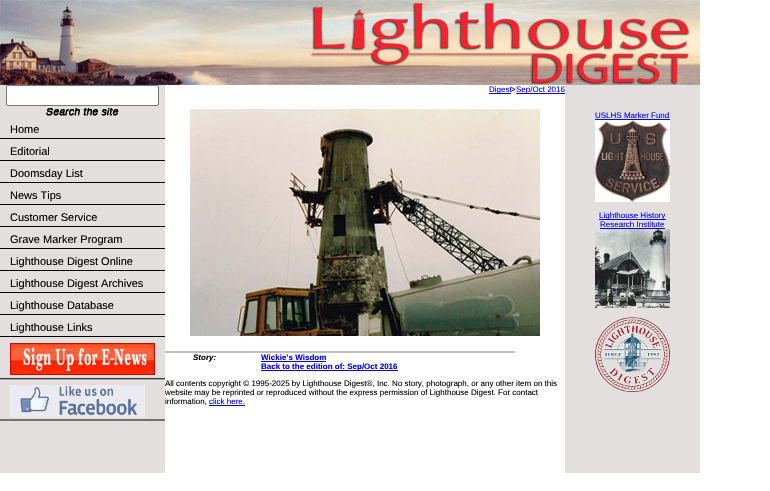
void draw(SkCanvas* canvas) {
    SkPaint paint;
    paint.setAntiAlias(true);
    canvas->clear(0xFFFFFFFF);
    canvas->drawImageRect(SkImages::DeferredFromEncodedData(SkData::MakeFromFileName("img1.png")), SkRect::MakeXYWH(0, 0, 700, 85), SkSamplingOptions());
    paint.setColor(0xFFE4DFDF);
    canvas->drawRect(SkRect::MakeXYWH(0, 85, 165, 388), paint);
    paint.setColor(0xFFFFFFFF);
    canvas->drawRoundRect(SkRect::MakeXYWH(6.5f, 85.5f, 152, 20), 1.5f, 1.5f, paint);
    paint.setStyle(SkPaint::kStroke_Style);
    paint.setStrokeWidth(1);
    paint.setColor(0xFF767676);
    canvas->drawRoundRect(SkRect::MakeXYWH(6.5f, 85.5f, 152, 20), 1.5f, 1.5f, paint);
    canvas->drawImageRect(SkImages::DeferredFromEncodedData(SkData::MakeFromFileName("img2.png")), SkRect::MakeXYWH(46, 108, 73, 8), SkSamplingOptions());
    canvas->drawImageRect(SkImages::DeferredFromEncodedData(SkData::MakeFromFileName("img3.png")), SkRect::MakeXYWH(0, 118, 165, 22), SkSamplingOptions());
    SkFont font1(fontMgr->matchFamilyStyle("Liberation Sans", SkFontStyle::Normal()), 11);
    font1.setSubpixel(true);
    paint.setStyle(SkPaint::kFill_Style);
    paint.setColor(0xFF000000);
    canvas->drawString("Home", 10, 133, font1, paint);
    canvas->drawImageRect(SkImages::DeferredFromEncodedData(SkData::MakeFromFileName("img3.png")), SkRect::MakeXYWH(0, 140, 165, 22), SkSamplingOptions());
    canvas->drawString("Editorial", 10, 155, font1, paint);
    canvas->drawImageRect(SkImages::DeferredFromEncodedData(SkData::MakeFromFileName("img3.png")), SkRect::MakeXYWH(0, 162, 165, 22), SkSamplingOptions());
    canvas->drawString("Doomsday List", 10, 177, font1, paint);
    canvas->drawImageRect(SkImages::DeferredFromEncodedData(SkData::MakeFromFileName("img3.png")), SkRect::MakeXYWH(0, 184, 165, 22), SkSamplingOptions());
    canvas->drawString("News Tips", 10, 199, font1, paint);
    canvas->drawImageRect(SkImages::DeferredFromEncodedData(SkData::MakeFromFileName("img3.png")), SkRect::MakeXYWH(0, 206, 165, 22), SkSamplingOptions());
    canvas->drawString("Customer Service", 10, 221, font1, paint);
    canvas->drawImageRect(SkImages::DeferredFromEncodedData(SkData::MakeFromFileName("img3.png")), SkRect::MakeXYWH(0, 228, 165, 22), SkSamplingOptions());
    canvas->drawString("Grave Marker Program", 10, 243, font1, paint);
    canvas->drawImageRect(SkImages::DeferredFromEncodedData(SkData::MakeFromFileName("img3.png")), SkRect::MakeXYWH(0, 250, 165, 22), SkSamplingOptions());
    canvas->drawString("Lighthouse Digest Online", 10, 265, font1, paint);
    canvas->drawImageRect(SkImages::DeferredFromEncodedData(SkData::MakeFromFileName("img3.png")), SkRect::MakeXYWH(0, 272, 165, 22), SkSamplingOptions());
    canvas->drawString("Lighthouse Digest Archives", 10, 287, font1, paint);
    canvas->drawImageRect(SkImages::DeferredFromEncodedData(SkData::MakeFromFileName("img3.png")), SkRect::MakeXYWH(0, 294, 165, 22), SkSamplingOptions());
    canvas->drawString("Lighthouse Database", 10, 309, font1, paint);
    canvas->drawImageRect(SkImages::DeferredFromEncodedData(SkData::MakeFromFileName("img3.png")), SkRect::MakeXYWH(0, 316, 165, 22), SkSamplingOptions());
    canvas->drawString("Lighthouse Links", 10, 331, font1, paint);
    canvas->drawImageRect(SkImages::DeferredFromEncodedData(SkData::MakeFromFileName("img4.png")), SkRect::MakeXYWH(0, 338, 165, 42), SkSamplingOptions());
    canvas->drawImageRect(SkImages::DeferredFromEncodedData(SkData::MakeFromFileName("img5.png")), SkRect::MakeXYWH(10, 343, 145, 32), SkSamplingOptions());
    canvas->drawImageRect(SkImages::DeferredFromEncodedData(SkData::MakeFromFileName("img6.png")), SkRect::MakeXYWH(0, 380, 165, 42), SkSamplingOptions());
    canvas->drawImageRect(SkImages::DeferredFromEncodedData(SkData::MakeFromFileName("img7.png")), SkRect::MakeXYWH(10, 385, 135, 32), SkSamplingOptions());
    paint.setColor(0xFF0000FF);
    canvas->drawRect(SkRect::MakeXYWH(489, 93, 22, 1), paint);
    SkFont font2(fontMgr->matchFamilyStyle("Liberation Sans", SkFontStyle::Normal()), 8);
    font2.setSubpixel(true);
    canvas->drawString("Digest", 489, 92, font2, paint);
    paint.setColor(0xFF000000);
    canvas->drawString(">", 511, 92, font2, paint);
    paint.setColor(0xFF0000FF);
    canvas->drawRect(SkRect::MakeXYWH(516, 93, 49, 1), paint);
    canvas->drawString("Sep/Oct 2016", 516, 92, font2, paint);
    canvas->drawImageRect(SkImages::DeferredFromEncodedData(SkData::MakeFromFileName("img8.png")), SkRect::MakeXYWH(190, 109, 350, 227), SkSamplingOptions());
    paint.setColor(0xFFBFBFBF);
    canvas->drawRect(SkRect::MakeXYWH(165, 351, 350, 2), paint);
    SkFont font3(fontMgr->matchFamilyStyle("Liberation Sans", SkFontStyle::BoldItalic()), 8);
    font3.setSubpixel(true);
    paint.setColor(0xFF000000);
    canvas->drawString("Story:", 193, 360, font3, paint);
    SkFont font4(fontMgr->matchFamilyStyle("Liberation Sans", SkFontStyle::Bold()), 8);
    font4.setSubpixel(true);
    paint.setColor(0xFF0000FF);
    canvas->drawString("Wickie’s Wisdom", 261, 360, font4, paint);
    canvas->drawRect(SkRect::MakeXYWH(261, 361, 65, 1), paint);
    canvas->drawRect(SkRect::MakeXYWH(261, 370, 137, 1), paint);
    canvas->drawString("Back to the edition of: Sep/Oct 2016", 261, 369, font4, paint);
    paint.setColor(0xFF000000);
    canvas->drawString("All contents copyright © 1995-2025 by Lighthouse Digest®, Inc. No story, photograph, or any other item on this", 165, 386, font2, paint);
    canvas->drawString("website may be reprinted or reproduced without the express permission of Lighthouse Digest. For contact", 165, 395, font2, paint);
    canvas->drawString("information,", 165, 404, font2, paint);
    paint.setColor(0xFF0000FF);
    canvas->drawString("click here.", 209, 404, font2, paint);
    canvas->drawRect(SkRect::MakeXYWH(209, 405, 36, 1), paint);
    paint.setColor(0xFFE4DFDF);
    canvas->drawRect(SkRect::MakeXYWH(565, 85, 135, 388), paint);
    paint.setColor(0xFF0000FF);
    canvas->drawString("USLHS Marker Fund", 595, 118, font2, paint);
    canvas->drawRect(SkRect::MakeXYWH(595, 119, 75, 1), paint);
    canvas->drawImageRect(SkImages::DeferredFromEncodedData(SkData::MakeFromFileName("img9.png")), SkRect::MakeXYWH(595, 120, 75, 82), SkSamplingOptions());
    canvas->drawRect(SkRect::MakeXYWH(599, 219, 67, 1), paint);
    canvas->drawString("Lighthouse History", 599, 218, font2, paint);
    canvas->drawString("Research Institute", 600, 227, font2, paint);
    canvas->drawRect(SkRect::MakeXYWH(600, 228, 65, 1), paint);
    canvas->drawImageRect(SkImages::DeferredFromEncodedData(SkData::MakeFromFileName("img10.png")), SkRect::MakeXYWH(595, 229, 75, 79), SkSamplingOptions());
    canvas->drawImageRect(SkImages::DeferredFromEncodedData(SkData::MakeFromFileName("img11.png")), SkRect::MakeXYWH(595, 317, 75, 75), SkSamplingOptions());
}
